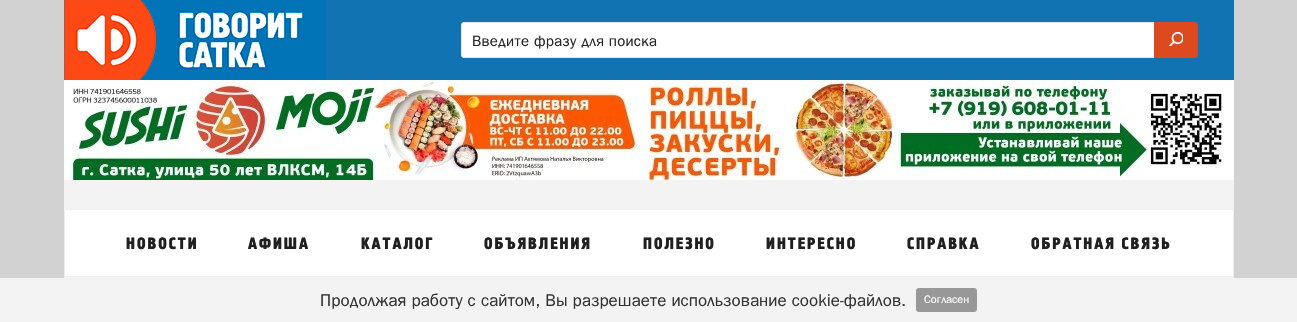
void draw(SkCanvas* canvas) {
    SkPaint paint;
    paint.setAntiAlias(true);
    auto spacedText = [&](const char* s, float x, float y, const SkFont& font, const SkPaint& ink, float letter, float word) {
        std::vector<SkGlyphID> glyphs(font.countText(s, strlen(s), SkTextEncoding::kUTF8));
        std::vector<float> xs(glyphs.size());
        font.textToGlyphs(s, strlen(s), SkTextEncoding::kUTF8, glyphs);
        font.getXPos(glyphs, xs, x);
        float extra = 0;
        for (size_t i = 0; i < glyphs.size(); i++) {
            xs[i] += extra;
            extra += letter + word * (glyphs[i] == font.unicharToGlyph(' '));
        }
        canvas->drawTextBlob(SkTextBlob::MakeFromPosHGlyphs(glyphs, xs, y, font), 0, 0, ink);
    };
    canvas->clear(0xFFD2D2D2);
    paint.setColor(0xFF1173B2);
    canvas->drawRect(SkRect::MakeXYWH(326, 0, 908, 80), paint);
    canvas->drawImageRect(SkImages::DeferredFromEncodedData(SkData::MakeFromFileName("img1.png")), SkRect::MakeXYWH(64, 0, 262, 80), SkSamplingOptions());
    paint.setColor(0xFFFFFFFF);
    canvas->drawRoundRect(SkRect::MakeXYWH(461.5f, 22.5f, 729, 35), 2.5f, 2.5f, paint);
    paint.setStyle(SkPaint::kStroke_Style);
    paint.setStrokeWidth(1);
    paint.setColor(0xFFE8E8E8);
    canvas->drawRoundRect(SkRect::MakeXYWH(461.5f, 22.5f, 729, 35), 2.5f, 2.5f, paint);
    SkFont font1(fontMgr->matchFamilyStyle("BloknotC", SkFontStyle::Normal()), 15);
    font1.setSubpixel(true);
    paint.setStyle(SkPaint::kFill_Style);
    paint.setColor(0xFF262626);
    spacedText("Введите фразу для поиска", 472, 46, font1, paint, 0.2f, 0);
    paint.setColor(0xFFDD4A1F);
    canvas->drawPath(SkPathBuilder().moveTo(1154, 22).lineTo(1195, 22).cubicTo(1196.5f, 22, 1198, 23.5f, 1198, 25).lineTo(1198, 55).cubicTo(1198, 56.5f, 1196.5f, 58, 1195, 58).lineTo(1154, 58).close().detach(), paint);
    canvas->drawImageRect(SkImages::DeferredFromEncodedData(SkData::MakeFromFileName("img2.png")), SkRect::MakeXYWH(1169, 32, 14, 14), SkSamplingOptions());
    paint.setColor(0xFFF3F3F3);
    canvas->drawRect(SkRect::MakeXYWH(64, 180, 1170, 30), paint);
    canvas->drawImageRect(SkImages::DeferredFromEncodedData(SkData::MakeFromFileName("img3.png")), SkRect::MakeXYWH(64, 80, 1170, 100), SkSamplingOptions());
    paint.setColor(0xFFFFFFFF);
    canvas->drawRect(SkRect::MakeXYWH(65, 210, 1168, 66), paint);
    paint.setColor(0xFFEEEEEE);
    canvas->drawRect(SkRect::MakeXYWH(1233, 210, 1, 68), paint);
    canvas->drawRect(SkRect::MakeXYWH(64, 276, 1170, 1), paint);
    canvas->drawRect(SkRect::MakeXYWH(64, 210, 1, 68), paint);
    SkFont font2(fontMgr->matchFamilyStyle("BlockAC", SkFontStyle::Normal()), 16);
    font2.setSubpixel(true);
    paint.setColor(0xFF202020);
    spacedText("НОВОСТИ", 126, 249, font2, paint, 2, 0);
    spacedText("АФИША", 248, 249, font2, paint, 2, 0);
    spacedText("КАТАЛОГ", 361, 249, font2, paint, 2, 0);
    spacedText("ОБЪЯВЛЕНИЯ", 484, 249, font2, paint, 2, 0);
    spacedText("ПОЛЕЗНО", 643, 249, font2, paint, 2, 0);
    spacedText("ИНТЕРЕСНО", 766, 249, font2, paint, 2, 0);
    spacedText("СПРАВКА", 907, 249, font2, paint, 2, 0);
    spacedText("ОБРАТНАЯ СВЯЗЬ", 1031, 249, font2, paint, 2, 0);
    paint.setColor(0xFFF3F3F3);
    canvas->drawRect(SkRect::MakeXYWH(65, 277, 1168, 1), paint);
    canvas->drawRect(SkRect::MakeXYWH(0, 278, 1297, 44), paint);
    SkFont font3(fontMgr->matchFamilyStyle("BloknotC", SkFontStyle::Normal()), 17);
    font3.setSubpixel(true);
    paint.setColor(0xFF333333);
    canvas->drawString("Продолжая работу с сайтом, Вы разрешаете использование cookie-файлов.", 320, 306, font3, paint);
    paint.setColor(0xFF989898);
    canvas->drawRoundRect(SkRect::MakeXYWH(916, 288, 61, 24), 3, 3, paint);
    SkFont font4(fontMgr->matchFamilyStyle("BloknotC", SkFontStyle::Normal()), 11);
    font4.setSubpixel(true);
    paint.setColor(0xFFFFFFFF);
    canvas->drawString("Согласен", 924, 303, font4, paint);
}
